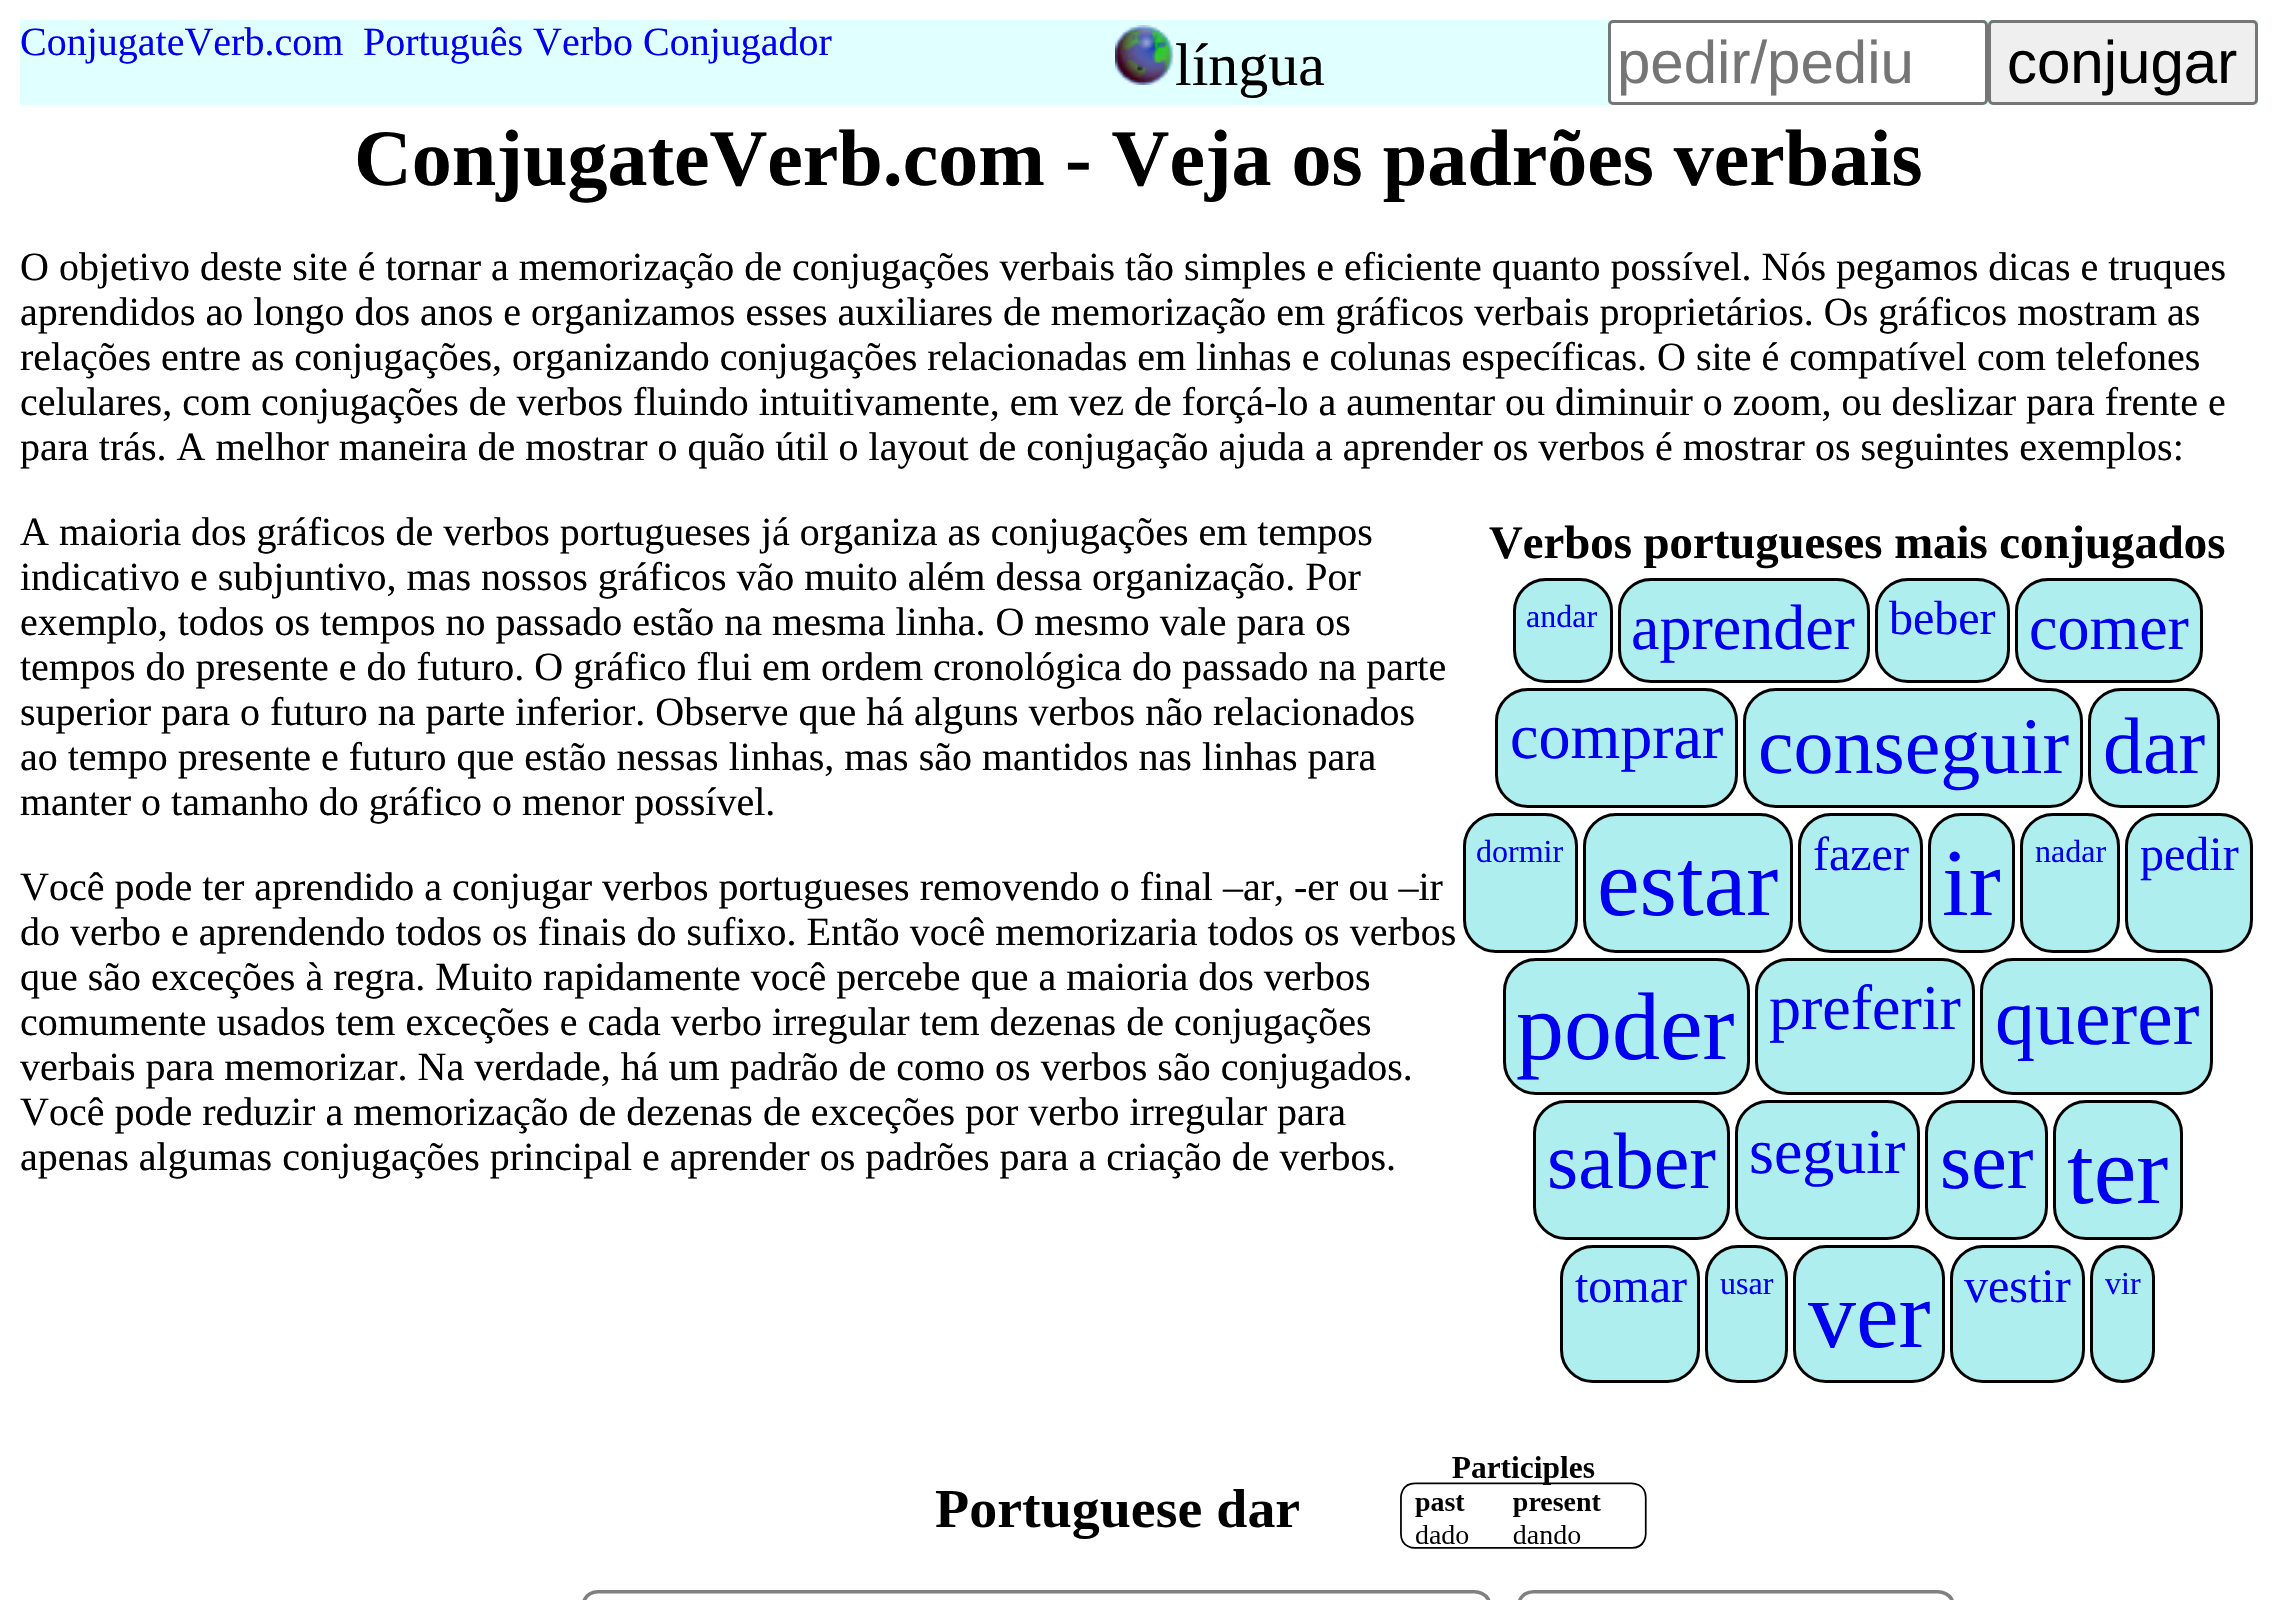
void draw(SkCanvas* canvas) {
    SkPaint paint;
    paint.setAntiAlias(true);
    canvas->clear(0xFFFFFFFF);
    paint.setColor(0xFFE0FFFF);
    canvas->drawRect(SkRect::MakeXYWH(20, 20, 2238, 85), paint);
    SkFont font1(fontMgr->matchFamilyStyle("Liberation Serif", SkFontStyle::Normal()), 40);
    font1.setSubpixel(true);
    paint.setColor(0xFF0000EE);
    canvas->drawString("ConjugateVerb.com", 20, 55, font1, paint);
    canvas->drawString("Português Verbo Conjugador", 363, 55, font1, paint);
    canvas->drawImageRect(SkImages::DeferredFromEncodedData(SkData::MakeFromFileName("img1.png")), SkRect::MakeXYWH(1115, 25, 60, 60), SkSamplingOptions());
    SkFont font2(fontMgr->matchFamilyStyle("Liberation Serif", SkFontStyle::Normal()), 60);
    font2.setSubpixel(true);
    paint.setColor(0xFF000000);
    canvas->drawString("língua", 1175, 85, font2, paint);
    paint.setColor(0xFFFFFFFF);
    canvas->drawRoundRect(SkRect::MakeXYWH(1609.5f, 21.5f, 377, 82), 3.5f, 3.5f, paint);
    paint.setStyle(SkPaint::kStroke_Style);
    paint.setStrokeWidth(3);
    paint.setColor(0xFF767676);
    canvas->drawRoundRect(SkRect::MakeXYWH(1609.5f, 21.5f, 377, 82), 3.5f, 3.5f, paint);
    SkFont font3(fontMgr->matchFamilyStyle("Liberation Sans", SkFontStyle::Normal()), 60);
    font3.setSubpixel(true);
    paint.setStyle(SkPaint::kFill_Style);
    paint.setColor(0xFF757575);
    canvas->drawString("pedir/pediu", 1617, 83, font3, paint);
    paint.setColor(0xFFEFEFEF);
    canvas->drawRoundRect(SkRect::MakeXYWH(1989.5f, 21.5f, 267, 82), 3.5f, 3.5f, paint);
    paint.setStyle(SkPaint::kStroke_Style);
    paint.setColor(0xFF767676);
    canvas->drawRoundRect(SkRect::MakeXYWH(1989.5f, 21.5f, 267, 82), 3.5f, 3.5f, paint);
    paint.setStyle(SkPaint::kFill_Style);
    paint.setColor(0xFF000000);
    canvas->drawString("conjugar", 2007, 83, font3, paint);
    SkFont font4(fontMgr->matchFamilyStyle("Liberation Serif", SkFontStyle::Bold()), 80);
    font4.setSubpixel(true);
    canvas->drawString("ConjugateVerb.com - Veja os padrões verbais", 354, 185, font4, paint);
    canvas->drawString("O objetivo deste site é tornar a memorização de conjugações verbais tão simples e eficiente quanto possível. Nós pegamos dicas e truques", 20, 280, font1, paint);
    canvas->drawString("aprendidos ao longo dos anos e organizamos esses auxiliares de memorização em gráficos verbais proprietários. Os gráficos mostram as", 20, 325, font1, paint);
    canvas->drawString("relações entre as conjugações, organizando conjugações relacionadas em linhas e colunas específicas. O site é compatível com telefones", 20, 370, font1, paint);
    canvas->drawString("celulares, com conjugações de verbos fluindo intuitivamente, em vez de forçá-lo a aumentar ou diminuir o zoom, ou deslizar para frente e", 20, 415, font1, paint);
    canvas->drawString("para trás. A melhor maneira de mostrar o quão útil o layout de conjugação ajuda a aprender os verbos é mostrar os seguintes exemplos:", 20, 460, font1, paint);
    canvas->drawString("A maioria dos gráficos de verbos portugueses já organiza as conjugações em tempos", 20, 545, font1, paint);
    canvas->drawString("indicativo e subjuntivo, mas nossos gráficos vão muito além dessa organização. Por", 20, 590, font1, paint);
    canvas->drawString("exemplo, todos os tempos no passado estão na mesma linha. O mesmo vale para os", 20, 635, font1, paint);
    canvas->drawString("tempos do presente e do futuro. O gráfico flui em ordem cronológica do passado na parte", 20, 680, font1, paint);
    canvas->drawString("superior para o futuro na parte inferior. Observe que há alguns verbos não relacionados", 20, 725, font1, paint);
    canvas->drawString("ao tempo presente e futuro que estão nessas linhas, mas são mantidos nas linhas para", 20, 770, font1, paint);
    canvas->drawString("manter o tamanho do gráfico o menor possível.", 20, 815, font1, paint);
    SkFont font5(fontMgr->matchFamilyStyle("Liberation Serif", SkFontStyle::Bold()), 46.75f);
    font5.setSubpixel(true);
    canvas->drawString("Verbos portugueses mais conjugados", 1489, 558, font5, paint);
    paint.setColor(0xFFAFEEEE);
    canvas->drawRoundRect(SkRect::MakeXYWH(1514.5f, 579.5f, 97, 102), 31.5f, 31.5f, paint);
    paint.setStyle(SkPaint::kStroke_Style);
    paint.setColor(0xFF000000);
    canvas->drawRoundRect(SkRect::MakeXYWH(1514.5f, 579.5f, 97, 102), 31.5f, 31.5f, paint);
    SkFont font6(fontMgr->matchFamilyStyle("Liberation Serif", SkFontStyle::Normal()), 32);
    font6.setSubpixel(true);
    paint.setStyle(SkPaint::kFill_Style);
    paint.setColor(0xFF0000EE);
    canvas->drawString("andar", 1526, 627, font6, paint);
    paint.setColor(0xFFAFEEEE);
    canvas->drawRoundRect(SkRect::MakeXYWH(1619.5f, 579.5f, 249, 102), 31.5f, 31.5f, paint);
    paint.setStyle(SkPaint::kStroke_Style);
    paint.setColor(0xFF000000);
    canvas->drawRoundRect(SkRect::MakeXYWH(1619.5f, 579.5f, 249, 102), 31.5f, 31.5f, paint);
    SkFont font7(fontMgr->matchFamilyStyle("Liberation Serif", SkFontStyle::Normal()), 64);
    font7.setSubpixel(true);
    paint.setStyle(SkPaint::kFill_Style);
    paint.setColor(0xFF0000EE);
    canvas->drawString("aprender", 1631, 649, font7, paint);
    paint.setColor(0xFFAFEEEE);
    canvas->drawRoundRect(SkRect::MakeXYWH(1876.5f, 579.5f, 132, 102), 31.5f, 31.5f, paint);
    paint.setStyle(SkPaint::kStroke_Style);
    paint.setColor(0xFF000000);
    canvas->drawRoundRect(SkRect::MakeXYWH(1876.5f, 579.5f, 132, 102), 31.5f, 31.5f, paint);
    SkFont font8(fontMgr->matchFamilyStyle("Liberation Serif", SkFontStyle::Normal()), 48);
    font8.setSubpixel(true);
    paint.setStyle(SkPaint::kFill_Style);
    paint.setColor(0xFF0000EE);
    canvas->drawString("beber", 1889, 634, font8, paint);
    paint.setColor(0xFFAFEEEE);
    canvas->drawRoundRect(SkRect::MakeXYWH(2016.5f, 579.5f, 185, 102), 31.5f, 31.5f, paint);
    paint.setStyle(SkPaint::kStroke_Style);
    paint.setColor(0xFF000000);
    canvas->drawRoundRect(SkRect::MakeXYWH(2016.5f, 579.5f, 185, 102), 31.5f, 31.5f, paint);
    paint.setStyle(SkPaint::kFill_Style);
    paint.setColor(0xFF0000EE);
    canvas->drawString("comer", 2029, 649, font7, paint);
    paint.setColor(0xFFAFEEEE);
    canvas->drawRoundRect(SkRect::MakeXYWH(1496.5f, 689.5f, 240, 117), 31.5f, 31.5f, paint);
    paint.setStyle(SkPaint::kStroke_Style);
    paint.setColor(0xFF000000);
    canvas->drawRoundRect(SkRect::MakeXYWH(1496.5f, 689.5f, 240, 117), 31.5f, 31.5f, paint);
    paint.setStyle(SkPaint::kFill_Style);
    paint.setColor(0xFF0000EE);
    canvas->drawString("comprar", 1510, 758, font7, paint);
    paint.setColor(0xFFAFEEEE);
    canvas->drawRoundRect(SkRect::MakeXYWH(1744.5f, 689.5f, 337, 117), 31.5f, 31.5f, paint);
    paint.setStyle(SkPaint::kStroke_Style);
    paint.setColor(0xFF000000);
    canvas->drawRoundRect(SkRect::MakeXYWH(1744.5f, 689.5f, 337, 117), 31.5f, 31.5f, paint);
    SkFont font9(fontMgr->matchFamilyStyle("Liberation Serif", SkFontStyle::Normal()), 80);
    font9.setSubpixel(true);
    paint.setStyle(SkPaint::kFill_Style);
    paint.setColor(0xFF0000EE);
    canvas->drawString("conseguir", 1758, 773, font9, paint);
    paint.setColor(0xFFAFEEEE);
    canvas->drawRoundRect(SkRect::MakeXYWH(2089.5f, 689.5f, 129, 117), 31.5f, 31.5f, paint);
    paint.setStyle(SkPaint::kStroke_Style);
    paint.setColor(0xFF000000);
    canvas->drawRoundRect(SkRect::MakeXYWH(2089.5f, 689.5f, 129, 117), 31.5f, 31.5f, paint);
    paint.setStyle(SkPaint::kFill_Style);
    paint.setColor(0xFF0000EE);
    canvas->drawString("dar", 2103, 773, font9, paint);
    paint.setColor(0xFFAFEEEE);
    canvas->drawRoundRect(SkRect::MakeXYWH(1464.5f, 814.5f, 112, 137), 31.5f, 31.5f, paint);
    paint.setStyle(SkPaint::kStroke_Style);
    paint.setColor(0xFF000000);
    canvas->drawRoundRect(SkRect::MakeXYWH(1464.5f, 814.5f, 112, 137), 31.5f, 31.5f, paint);
    paint.setStyle(SkPaint::kFill_Style);
    paint.setColor(0xFF0000EE);
    canvas->drawString("dormir", 1476, 862, font6, paint);
    paint.setColor(0xFFAFEEEE);
    canvas->drawRoundRect(SkRect::MakeXYWH(1584.5f, 814.5f, 207, 137), 31.5f, 31.5f, paint);
    paint.setStyle(SkPaint::kStroke_Style);
    paint.setColor(0xFF000000);
    canvas->drawRoundRect(SkRect::MakeXYWH(1584.5f, 814.5f, 207, 137), 31.5f, 31.5f, paint);
    SkFont font10(fontMgr->matchFamilyStyle("Liberation Serif", SkFontStyle::Normal()), 96);
    font10.setSubpixel(true);
    paint.setStyle(SkPaint::kFill_Style);
    paint.setColor(0xFF0000EE);
    canvas->drawString("estar", 1597, 915, font10, paint);
    paint.setColor(0xFFAFEEEE);
    canvas->drawRoundRect(SkRect::MakeXYWH(1799.5f, 814.5f, 122, 137), 31.5f, 31.5f, paint);
    paint.setStyle(SkPaint::kStroke_Style);
    paint.setColor(0xFF000000);
    canvas->drawRoundRect(SkRect::MakeXYWH(1799.5f, 814.5f, 122, 137), 31.5f, 31.5f, paint);
    paint.setStyle(SkPaint::kFill_Style);
    paint.setColor(0xFF0000EE);
    canvas->drawString("fazer", 1813, 870, font8, paint);
    paint.setColor(0xFFAFEEEE);
    canvas->drawRoundRect(SkRect::MakeXYWH(1929.5f, 814.5f, 84, 137), 31.5f, 31.5f, paint);
    paint.setStyle(SkPaint::kStroke_Style);
    paint.setColor(0xFF000000);
    canvas->drawRoundRect(SkRect::MakeXYWH(1929.5f, 814.5f, 84, 137), 31.5f, 31.5f, paint);
    paint.setStyle(SkPaint::kFill_Style);
    paint.setColor(0xFF0000EE);
    canvas->drawString("ir", 1942, 915, font10, paint);
    paint.setColor(0xFFAFEEEE);
    canvas->drawRoundRect(SkRect::MakeXYWH(2021.5f, 814.5f, 97, 137), 31.5f, 31.5f, paint);
    paint.setStyle(SkPaint::kStroke_Style);
    paint.setColor(0xFF000000);
    canvas->drawRoundRect(SkRect::MakeXYWH(2021.5f, 814.5f, 97, 137), 31.5f, 31.5f, paint);
    paint.setStyle(SkPaint::kFill_Style);
    paint.setColor(0xFF0000EE);
    canvas->drawString("nadar", 2035, 862, font6, paint);
    paint.setColor(0xFFAFEEEE);
    canvas->drawRoundRect(SkRect::MakeXYWH(2126.5f, 814.5f, 125, 137), 31.5f, 31.5f, paint);
    paint.setStyle(SkPaint::kStroke_Style);
    paint.setColor(0xFF000000);
    canvas->drawRoundRect(SkRect::MakeXYWH(2126.5f, 814.5f, 125, 137), 31.5f, 31.5f, paint);
    paint.setStyle(SkPaint::kFill_Style);
    paint.setColor(0xFF0000EE);
    canvas->drawString("pedir", 2140, 870, font8, paint);
    paint.setColor(0xFFAFEEEE);
    canvas->drawRoundRect(SkRect::MakeXYWH(1504.5f, 959.5f, 244, 134), 31.5f, 31.5f, paint);
    paint.setStyle(SkPaint::kStroke_Style);
    paint.setColor(0xFF000000);
    canvas->drawRoundRect(SkRect::MakeXYWH(1504.5f, 959.5f, 244, 134), 31.5f, 31.5f, paint);
    paint.setStyle(SkPaint::kFill_Style);
    paint.setColor(0xFF0000EE);
    canvas->drawString("poder", 1516, 1059, font10, paint);
    paint.setColor(0xFFAFEEEE);
    canvas->drawRoundRect(SkRect::MakeXYWH(1756.5f, 959.5f, 217, 134), 31.5f, 31.5f, paint);
    paint.setStyle(SkPaint::kStroke_Style);
    paint.setColor(0xFF000000);
    canvas->drawRoundRect(SkRect::MakeXYWH(1756.5f, 959.5f, 217, 134), 31.5f, 31.5f, paint);
    paint.setStyle(SkPaint::kFill_Style);
    paint.setColor(0xFF0000EE);
    canvas->drawString("preferir", 1769, 1029, font7, paint);
    paint.setColor(0xFFAFEEEE);
    canvas->drawRoundRect(SkRect::MakeXYWH(1981.5f, 959.5f, 230, 134), 31.5f, 31.5f, paint);
    paint.setStyle(SkPaint::kStroke_Style);
    paint.setColor(0xFF000000);
    canvas->drawRoundRect(SkRect::MakeXYWH(1981.5f, 959.5f, 230, 134), 31.5f, 31.5f, paint);
    paint.setStyle(SkPaint::kFill_Style);
    paint.setColor(0xFF0000EE);
    canvas->drawString("querer", 1995, 1044, font9, paint);
    paint.setColor(0xFFAFEEEE);
    canvas->drawRoundRect(SkRect::MakeXYWH(1534.5f, 1101.5f, 194, 137), 31.5f, 31.5f, paint);
    paint.setStyle(SkPaint::kStroke_Style);
    paint.setColor(0xFF000000);
    canvas->drawRoundRect(SkRect::MakeXYWH(1534.5f, 1101.5f, 194, 137), 31.5f, 31.5f, paint);
    paint.setStyle(SkPaint::kFill_Style);
    paint.setColor(0xFF0000EE);
    canvas->drawString("saber", 1547, 1188, font9, paint);
    paint.setColor(0xFFAFEEEE);
    canvas->drawRoundRect(SkRect::MakeXYWH(1736.5f, 1101.5f, 182, 137), 31.5f, 31.5f, paint);
    paint.setStyle(SkPaint::kStroke_Style);
    paint.setColor(0xFF000000);
    canvas->drawRoundRect(SkRect::MakeXYWH(1736.5f, 1101.5f, 182, 137), 31.5f, 31.5f, paint);
    paint.setStyle(SkPaint::kFill_Style);
    paint.setColor(0xFF0000EE);
    canvas->drawString("seguir", 1749, 1173, font7, paint);
    paint.setColor(0xFFAFEEEE);
    canvas->drawRoundRect(SkRect::MakeXYWH(1926.5f, 1101.5f, 120, 137), 31.5f, 31.5f, paint);
    paint.setStyle(SkPaint::kStroke_Style);
    paint.setColor(0xFF000000);
    canvas->drawRoundRect(SkRect::MakeXYWH(1926.5f, 1101.5f, 120, 137), 31.5f, 31.5f, paint);
    paint.setStyle(SkPaint::kFill_Style);
    paint.setColor(0xFF0000EE);
    canvas->drawString("ser", 1940, 1188, font9, paint);
    paint.setColor(0xFFAFEEEE);
    canvas->drawRoundRect(SkRect::MakeXYWH(2054.5f, 1101.5f, 127, 137), 31.5f, 31.5f, paint);
    paint.setStyle(SkPaint::kStroke_Style);
    paint.setColor(0xFF000000);
    canvas->drawRoundRect(SkRect::MakeXYWH(2054.5f, 1101.5f, 127, 137), 31.5f, 31.5f, paint);
    paint.setStyle(SkPaint::kFill_Style);
    paint.setColor(0xFF0000EE);
    canvas->drawString("ter", 2067, 1203, font10, paint);
    paint.setColor(0xFFAFEEEE);
    canvas->drawRoundRect(SkRect::MakeXYWH(1561.5f, 1246.5f, 137, 135), 31.5f, 31.5f, paint);
    paint.setStyle(SkPaint::kStroke_Style);
    paint.setColor(0xFF000000);
    canvas->drawRoundRect(SkRect::MakeXYWH(1561.5f, 1246.5f, 137, 135), 31.5f, 31.5f, paint);
    paint.setStyle(SkPaint::kFill_Style);
    paint.setColor(0xFF0000EE);
    canvas->drawString("tomar", 1575, 1302, font8, paint);
    paint.setColor(0xFFAFEEEE);
    canvas->drawRoundRect(SkRect::MakeXYWH(1706.5f, 1246.5f, 80, 135), 31.5f, 31.5f, paint);
    paint.setStyle(SkPaint::kStroke_Style);
    paint.setColor(0xFF000000);
    canvas->drawRoundRect(SkRect::MakeXYWH(1706.5f, 1246.5f, 80, 135), 31.5f, 31.5f, paint);
    paint.setStyle(SkPaint::kFill_Style);
    paint.setColor(0xFF0000EE);
    canvas->drawString("usar", 1720, 1294, font6, paint);
    paint.setColor(0xFFAFEEEE);
    canvas->drawRoundRect(SkRect::MakeXYWH(1951.5f, 1246.5f, 132, 135), 31.5f, 31.5f, paint);
    paint.setStyle(SkPaint::kStroke_Style);
    paint.setColor(0xFF000000);
    canvas->drawRoundRect(SkRect::MakeXYWH(1951.5f, 1246.5f, 132, 135), 31.5f, 31.5f, paint);
    paint.setStyle(SkPaint::kFill_Style);
    paint.setColor(0xFF0000EE);
    canvas->drawString("vestir", 1964, 1302, font8, paint);
    paint.setColor(0xFFAFEEEE);
    canvas->drawRoundRect(SkRect::MakeXYWH(2091.5f, 1246.5f, 62, 135), 31, 31, paint);
    paint.setStyle(SkPaint::kStroke_Style);
    paint.setColor(0xFF000000);
    canvas->drawRoundRect(SkRect::MakeXYWH(2091.5f, 1246.5f, 62, 135), 31, 31, paint);
    paint.setStyle(SkPaint::kFill_Style);
    paint.setColor(0xFF0000EE);
    canvas->drawString("vir", 2105, 1294, font6, paint);
    paint.setColor(0xFFAFEEEE);
    canvas->drawRoundRect(SkRect::MakeXYWH(1794.5f, 1246.5f, 149, 135), 31.5f, 31.5f, paint);
    paint.setStyle(SkPaint::kStroke_Style);
    paint.setColor(0xFF000000);
    canvas->drawRoundRect(SkRect::MakeXYWH(1794.5f, 1246.5f, 149, 135), 31.5f, 31.5f, paint);
    paint.setStyle(SkPaint::kFill_Style);
    paint.setColor(0xFF0000EE);
    canvas->drawString("ver", 1808, 1347, font10, paint);
    paint.setColor(0xFF000000);
    canvas->drawString("Você pode ter aprendido a conjugar verbos portugueses removendo o final –ar, -er ou –ir", 20, 900, font1, paint);
    canvas->drawString("do verbo e aprendendo todos os finais do sufixo. Então você memorizaria todos os verbos", 20, 945, font1, paint);
    canvas->drawString("que são exceções à regra. Muito rapidamente você percebe que a maioria dos verbos", 20, 990, font1, paint);
    canvas->drawString("comumente usados tem exceções e cada verbo irregular tem dezenas de conjugações", 20, 1035, font1, paint);
    canvas->drawString("verbais para memorizar. Na verdade, há um padrão de como os verbos são conjugados.", 20, 1080, font1, paint);
    canvas->drawString("Você pode reduzir a memorização de dezenas de exceções por verbo irregular para", 20, 1125, font1, paint);
    canvas->drawString("apenas algumas conjugações principal e aprender os padrões para a criação de verbos.", 20, 1170, font1, paint);
    canvas->drawImageRect(SkImages::DeferredFromEncodedData(SkData::MakeFromFileName("img2.png")), SkRect::MakeXYWH(582, 1456, 1372, 144), SkSamplingOptions());
}
